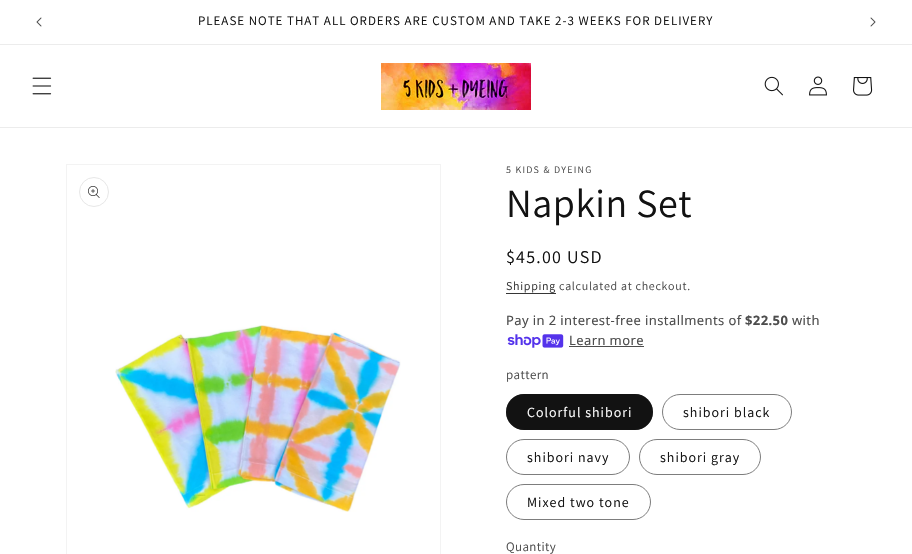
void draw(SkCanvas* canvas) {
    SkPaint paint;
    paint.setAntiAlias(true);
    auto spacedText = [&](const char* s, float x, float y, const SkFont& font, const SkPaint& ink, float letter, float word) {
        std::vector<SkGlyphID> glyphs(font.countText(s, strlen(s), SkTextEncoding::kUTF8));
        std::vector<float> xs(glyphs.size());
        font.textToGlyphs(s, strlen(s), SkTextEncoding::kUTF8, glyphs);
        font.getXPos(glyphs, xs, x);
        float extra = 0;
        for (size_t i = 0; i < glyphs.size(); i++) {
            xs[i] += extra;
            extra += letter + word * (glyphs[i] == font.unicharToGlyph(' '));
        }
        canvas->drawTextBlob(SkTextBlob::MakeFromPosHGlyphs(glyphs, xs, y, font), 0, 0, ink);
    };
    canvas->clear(0xFFFFFFFF);
    paint.setColor(0xFFECECEC);
    canvas->drawRect(SkRect::MakeXYWH(0, 44, 912, 1), paint);
    canvas->drawImageRect(SkImages::DeferredFromEncodedData(SkData::MakeFromFileName("img1.png")), SkRect::MakeXYWH(36, 17, 6, 10), SkSamplingOptions());
    SkFont font1(fontMgr->matchFamilyStyle("Assistant", SkFontStyle::Normal()), 13);
    font1.setSubpixel(true);
    paint.setColor(0xFF121212);
    spacedText("PLEASE NOTE THAT ALL ORDERS ARE CUSTOM AND TAKE 2-3 WEEKS FOR DELIVERY", 198, 25, font1, paint, 1, 0);
    canvas->drawImageRect(SkImages::DeferredFromEncodedData(SkData::MakeFromFileName("img2.png")), SkRect::MakeXYWH(870, 17, 6, 10), SkSamplingOptions());
    paint.setColor(0xFFECECEC);
    canvas->drawRect(SkRect::MakeXYWH(0, 127, 912, 1), paint);
    canvas->drawImageRect(SkImages::DeferredFromEncodedData(SkData::MakeFromFileName("img3.png")), SkRect::MakeXYWH(32, 77, 20, 18), SkSamplingOptions());
    canvas->drawImageRect(SkImages::DeferredFromEncodedData(SkData::MakeFromFileName("img4.png")), SkRect::MakeXYWH(381, 63, 150, 47), SkSamplingOptions());
    canvas->drawImageRect(SkImages::DeferredFromEncodedData(SkData::MakeFromFileName("img5.png")), SkRect::MakeXYWH(764, 76, 19, 20), SkSamplingOptions());
    canvas->drawImageRect(SkImages::DeferredFromEncodedData(SkData::MakeFromFileName("img6.png")), SkRect::MakeXYWH(809, 76, 18, 20), SkSamplingOptions());
    canvas->drawImageRect(SkImages::DeferredFromEncodedData(SkData::MakeFromFileName("img7.png")), SkRect::MakeXYWH(853, 77, 20, 19), SkSamplingOptions());
    paint.setStyle(SkPaint::kStroke_Style);
    paint.setStrokeWidth(1);
    paint.setColor(0xFFF3F3F3);
    canvas->drawRect(SkRect::MakeXYWH(66.5f, 164.5f, 374, 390), paint);
    paint.setColor(0xFFE7E7E7);
    canvas->drawCircle(94, 192, 14.5f, paint);
    canvas->drawImageRect(SkImages::DeferredFromEncodedData(SkData::MakeFromFileName("img8.png")), SkRect::MakeXYWH(88, 186, 12, 12), SkSamplingOptions());
    canvas->drawImageRect(SkImages::DeferredFromEncodedData(SkData::MakeFromFileName("img9.png")), SkRect::MakeXYWH(115, 325, 286, 187), SkSamplingOptions());
    SkFont font2(fontMgr->matchFamilyStyle("Assistant", SkFontStyle::Normal()), 10);
    font2.setSubpixel(true);
    paint.setStyle(SkPaint::kFill_Style);
    paint.setColor(0xFF4D4D4D);
    spacedText("5 KIDS & DYEING", 506, 173, font2, paint, 1.25f, 0);
    SkFont font3(fontMgr->matchFamilyStyle("Assistant", SkFontStyle::Normal()), 40);
    font3.setSubpixel(true);
    paint.setColor(0xFF121212);
    spacedText("Napkin Set", 506, 217, font3, paint, 0.5f, 0);
    SkFont font4(fontMgr->matchFamilyStyle("Assistant", SkFontStyle::Normal()), 18);
    font4.setSubpixel(true);
    spacedText("$45.00 USD", 506, 263, font4, paint, 1.25f, 0);
    SkFont font5(fontMgr->matchFamilyStyle("Assistant", SkFontStyle::Normal()), 12);
    font5.setSubpixel(true);
    paint.setColor(0xFF363636);
    spacedText("Shipping", 506, 290, font5, paint, 0.7f, 0);
    canvas->drawRect(SkRect::MakeXYWH(506, 293, 50, 1), paint);
    paint.setColor(0xFF4D4D4D);
    spacedText("calculated at checkout.", 559, 290, font5, paint, 0.7f, 0);
    SkFont font6(fontMgr->matchFamilyStyle("Noto Sans", SkFontStyle::Normal()), 13);
    font6.setSubpixel(true);
    spacedText("Pay in 2 interest-free installments of", 506, 325, font6, paint, 0.4f, 0);
    SkFont font7(fontMgr->matchFamilyStyle("Noto Sans", SkFontStyle::Bold()), 13);
    font7.setSubpixel(true);
    spacedText("$22.50", 745, 325, font7, paint, 0.4f, 0);
    spacedText("with", 792, 325, font6, paint, 0.4f, 0);
    canvas->drawImageRect(SkImages::DeferredFromEncodedData(SkData::MakeFromFileName("img10.png")), SkRect::MakeXYWH(507, 334, 57, 14), SkSamplingOptions());
    spacedText("Learn more", 569, 345, font6, paint, 0.4f, 0);
    canvas->drawRect(SkRect::MakeXYWH(569, 346, 75, 1), paint);
    spacedText("pattern", 506, 379, font1, paint, 0.4f, 0);
    paint.setColor(0xFF121212);
    canvas->drawRoundRect(SkRect::MakeXYWH(506, 394, 147, 36), 18, 18, paint);
    paint.setStyle(SkPaint::kStroke_Style);
    paint.setColor(0x8C121212);
    canvas->drawRoundRect(SkRect::MakeXYWH(506.5f, 394.5f, 146, 35), 17.5f, 17.5f, paint);
    SkFont font8(fontMgr->matchFamilyStyle("Assistant", SkFontStyle::Normal()), 14);
    font8.setSubpixel(true);
    paint.setStyle(SkPaint::kFill_Style);
    paint.setColor(0xFFFFFFFF);
    spacedText("Colorful shibori", 527, 417, font8, paint, 1, 0);
    paint.setStyle(SkPaint::kStroke_Style);
    paint.setColor(0xFF7D7D7D);
    canvas->drawRoundRect(SkRect::MakeXYWH(662.5f, 394.5f, 129, 35), 17.5f, 17.5f, paint);
    paint.setStyle(SkPaint::kFill_Style);
    paint.setColor(0xFF121212);
    spacedText("shibori black", 683, 417, font8, paint, 1, 0);
    paint.setStyle(SkPaint::kStroke_Style);
    paint.setColor(0xFF7D7D7D);
    canvas->drawRoundRect(SkRect::MakeXYWH(506.5f, 439.5f, 123, 35), 17.5f, 17.5f, paint);
    paint.setStyle(SkPaint::kFill_Style);
    paint.setColor(0xFF121212);
    spacedText("shibori navy", 527, 462, font8, paint, 1, 0);
    paint.setStyle(SkPaint::kStroke_Style);
    paint.setColor(0xFF7D7D7D);
    canvas->drawRoundRect(SkRect::MakeXYWH(639.5f, 439.5f, 121, 35), 17.5f, 17.5f, paint);
    paint.setStyle(SkPaint::kFill_Style);
    paint.setColor(0xFF121212);
    spacedText("shibori gray", 660, 462, font8, paint, 1, 0);
    paint.setStyle(SkPaint::kStroke_Style);
    paint.setColor(0xFF7D7D7D);
    canvas->drawRoundRect(SkRect::MakeXYWH(506.5f, 484.5f, 144, 35), 17.5f, 17.5f, paint);
    paint.setStyle(SkPaint::kFill_Style);
    paint.setColor(0xFF121212);
    spacedText("Mixed two tone", 527, 507, font8, paint, 1, 0);
    paint.setColor(0xFF4D4D4D);
    spacedText("Quantity", 506, 551, font1, paint, 0.4f, 0);
}
